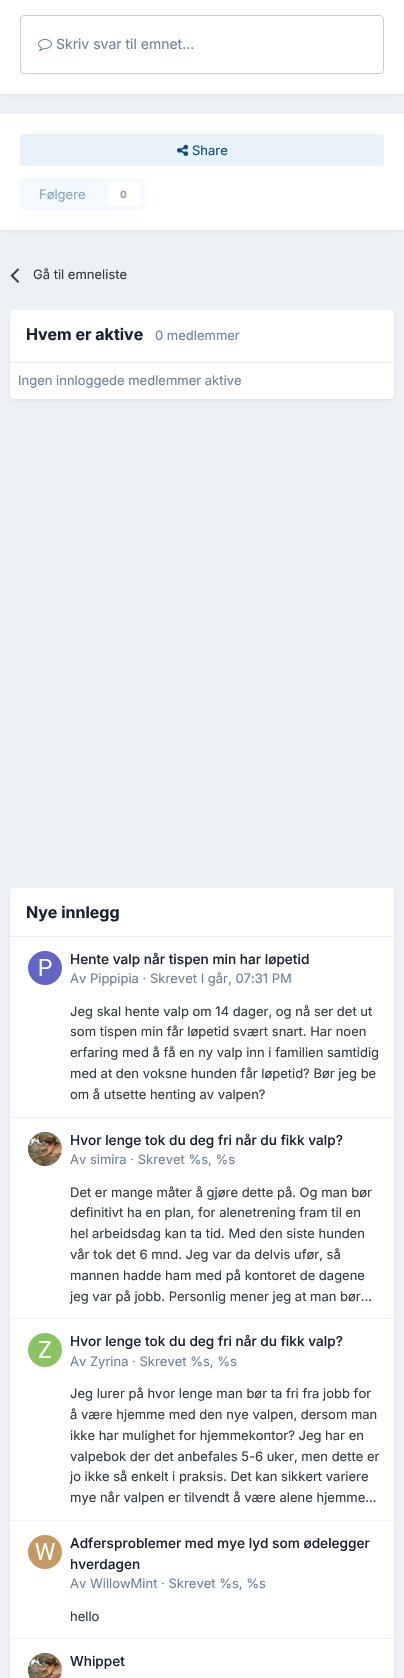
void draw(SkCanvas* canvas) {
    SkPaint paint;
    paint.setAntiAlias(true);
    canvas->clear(0xFFEDF0F4);
    paint.setColor(0x1A2D3748);
    paint.setMaskFilter(SkMaskFilter::MakeBlur(kNormal_SkBlurStyle, 2));
    canvas->drawRect(SkRect::MakeXYWH(1, -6, 402, 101), paint);
    paint.setMaskFilter(nullptr);
    paint.setColor(0xFFFFFFFF);
    canvas->drawRect(SkRect::MakeXYWH(0, 0, 404, 94), paint);
    paint.setStyle(SkPaint::kStroke_Style);
    paint.setStrokeWidth(1);
    paint.setColor(0xFFC6CCD5);
    canvas->drawRoundRect(SkRect::MakeXYWH(20.5f, 15.5f, 363, 58), 3.5f, 3.5f, paint);
    canvas->drawImageRect(SkImages::DeferredFromEncodedData(SkData::MakeFromFileName("img1.png")), SkRect::MakeXYWH(38, 39, 14, 12), SkSamplingOptions());
    SkFont font1(fontMgr->matchFamilyStyle("Inter", SkFontStyle::Normal()), 14);
    font1.setSubpixel(true);
    paint.setStyle(SkPaint::kFill_Style);
    paint.setColor(0xFF718096);
    canvas->drawString("Skriv svar til emnet...", 56, 49, font1, paint);
    paint.setColor(0x1A2D3748);
    paint.setMaskFilter(SkMaskFilter::MakeBlur(kNormal_SkBlurStyle, 2));
    canvas->drawRect(SkRect::MakeXYWH(1, 117, 402, 114), paint);
    paint.setMaskFilter(nullptr);
    paint.setColor(0xFFFFFFFF);
    canvas->drawRect(SkRect::MakeXYWH(0, 114, 404, 116), paint);
    paint.setColor(0xFFE8F2FA);
    canvas->drawRoundRect(SkRect::MakeXYWH(20, 134, 364, 32), 4, 4, paint);
    canvas->drawImageRect(SkImages::DeferredFromEncodedData(SkData::MakeFromFileName("img2.png")), SkRect::MakeXYWH(177, 144, 12, 12), SkSamplingOptions());
    SkFont font2(fontMgr->matchFamilyStyle("Inter", SkFontStyle::Normal()), 13);
    font2.setSubpixel(true);
    paint.setColor(0xFF0E4C79);
    canvas->drawString("Share", 192, 155, font2, paint);
    paint.setColor(0xFFF4F9FD);
    canvas->drawRoundRect(SkRect::MakeXYWH(20, 178, 125, 32), 4, 4, paint);
    paint.setColor(0xFF87A6BC);
    canvas->drawString("Følgere", 39, 199, font2, paint);
    paint.setColor(0xFFFFFFFF);
    canvas->drawRoundRect(SkRect::MakeXYWH(108, 182, 32, 24), 4, 4, paint);
    SkFont font3(fontMgr->matchFamilyStyle("Inter", SkFontStyle::Bold()), 10);
    font3.setSubpixel(true);
    paint.setColor(0xFF9A9EA0);
    canvas->drawString("0", 120, 198, font3, paint);
    canvas->drawImageRect(SkImages::DeferredFromEncodedData(SkData::MakeFromFileName("img3.png")), SkRect::MakeXYWH(10, 268, 10, 15), SkSamplingOptions());
    paint.setColor(0xFF353C41);
    canvas->drawString("Gå til emneliste", 33, 279, font2, paint);
    paint.setColor(0x1A2D3748);
    paint.setMaskFilter(SkMaskFilter::MakeBlur(kNormal_SkBlurStyle, 2));
    canvas->drawRoundRect(SkRect::MakeXYWH(11, 313, 382, 87), 3, 3, paint);
    paint.setMaskFilter(nullptr);
    paint.setColor(0xFFFFFFFF);
    canvas->drawRoundRect(SkRect::MakeXYWH(10, 310, 384, 89), 4, 4, paint);
    canvas->drawPath(SkPathBuilder().moveTo(14, 310).lineTo(390, 310).cubicTo(392, 310, 394, 312, 394, 314).lineTo(394, 363).lineTo(10, 363).lineTo(10, 314).cubicTo(10, 312, 12, 310, 14, 310).close().detach(), paint);
    paint.setColor(0xFFEAECEF);
    canvas->drawRect(SkRect::MakeXYWH(10, 362, 384, 1), paint);
    SkFont font4(fontMgr->matchFamilyStyle("Inter", SkFontStyle::Bold()), 16);
    font4.setSubpixel(true);
    paint.setColor(0xFF1A202C);
    canvas->drawString("Hvem er aktive", 26, 340, font4, paint);
    paint.setColor(0xFF718096);
    canvas->drawString("0 medlemmer", 155, 340, font2, paint);
    canvas->drawString("Ingen innloggede medlemmer aktive", 18, 385, font2, paint);
    paint.setColor(0x1A2D3748);
    paint.setMaskFilter(SkMaskFilter::MakeBlur(kNormal_SkBlurStyle, 2));
    canvas->drawRoundRect(SkRect::MakeXYWH(11, 891, 382, 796), 3, 3, paint);
    paint.setMaskFilter(nullptr);
    paint.setColor(0xFFFFFFFF);
    canvas->drawRoundRect(SkRect::MakeXYWH(10, 888, 384, 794), 4, 4, paint);
    canvas->drawPath(SkPathBuilder().moveTo(14, 888).lineTo(390, 888).cubicTo(392, 888, 394, 890, 394, 892).lineTo(394, 937).lineTo(10, 937).lineTo(10, 892).cubicTo(10, 890, 12, 888, 14, 888).close().detach(), paint);
    paint.setColor(0xFFEAECEF);
    canvas->drawRect(SkRect::MakeXYWH(10, 936, 384, 1), paint);
    paint.setColor(0xFF1A202C);
    canvas->drawString("Nye innlegg", 26, 918, font4, paint);
    paint.setColor(0xFFF1F2F5);
    canvas->drawRect(SkRect::MakeXYWH(10, 1117, 384, 1), paint);
    canvas->drawImageRect(SkImages::DeferredFromEncodedData(SkData::MakeFromFileName("img4.png")), SkRect::MakeXYWH(28, 951, 34, 34), SkSamplingOptions());
    SkFont font5(fontMgr->matchFamilyStyle("Inter", SkFontStyle(500, SkFontStyle::kNormal_Width, SkFontStyle::kUpright_Slant)), 13.65f);
    font5.setSubpixel(true);
    paint.setColor(0xFF1A202C);
    canvas->drawString("Hente valp når tispen min har løpetid", 70, 964, font5, paint);
    paint.setColor(0xFF718096);
    canvas->drawString("Av Pippipia · Skrevet I går, 07:31 PM", 70, 983, font2, paint);
    paint.setColor(0xFF353C41);
    canvas->drawString("Jeg skal hente valp om 14 dager, og nå ser det ut", 70, 1016, font2, paint);
    canvas->drawString("som tispen min får løpetid svært snart. Har noen", 70, 1036, font2, paint);
    canvas->drawString("erfaring med å få en ny valp inn i familien samtidig", 70, 1057, font2, paint);
    canvas->drawString("med at den voksne hunden får løpetid? Bør jeg be", 70, 1078, font2, paint);
    canvas->drawString("om å utsette henting av valpen?", 70, 1099, font2, paint);
    paint.setColor(0xFFF1F2F5);
    canvas->drawRect(SkRect::MakeXYWH(10, 1318, 384, 1), paint);
    canvas->drawImageRect(SkImages::DeferredFromEncodedData(SkData::MakeFromFileName("img5.png")), SkRect::MakeXYWH(28, 1132, 34, 34), SkSamplingOptions());
    paint.setColor(0xFF1A202C);
    canvas->drawString("Hvor lenge tok du deg fri når du fikk valp?", 70, 1145, font5, paint);
    paint.setColor(0xFF718096);
    canvas->drawString("Av simira · Skrevet %s, %s", 70, 1164, font2, paint);
    paint.setColor(0xFF353C41);
    canvas->drawString("Det er mange måter å gjøre dette på. Og man bør", 70, 1197, font2, paint);
    canvas->drawString("definitivt ha en plan, for alenetrening fram til en", 70, 1217, font2, paint);
    canvas->drawString("hel arbeidsdag kan ta tid. Med den siste hunden", 70, 1238, font2, paint);
    canvas->drawString("vår tok det 6 mnd. Jeg var da delvis ufør, så", 70, 1259, font2, paint);
    canvas->drawString("mannen hadde ham med på kontoret de dagene", 70, 1280, font2, paint);
    canvas->drawString("jeg var på jobb. Personlig mener jeg at man bør...", 70, 1301, font2, paint);
    paint.setColor(0xFFF1F2F5);
    canvas->drawRect(SkRect::MakeXYWH(10, 1520, 384, 1), paint);
    canvas->drawImageRect(SkImages::DeferredFromEncodedData(SkData::MakeFromFileName("img6.png")), SkRect::MakeXYWH(28, 1333, 34, 34), SkSamplingOptions());
    paint.setColor(0xFF1A202C);
    canvas->drawString("Hvor lenge tok du deg fri når du fikk valp?", 70, 1346, font5, paint);
    paint.setColor(0xFF718096);
    canvas->drawString("Av Zyrina · Skrevet %s, %s", 70, 1366, font2, paint);
    paint.setColor(0xFF353C41);
    canvas->drawString("Jeg lurer på hvor lenge man bør ta fri fra jobb for", 70, 1398, font2, paint);
    canvas->drawString("å være hjemme med den nye valpen, dersom man", 70, 1419, font2, paint);
    canvas->drawString("ikke har mulighet for hjemmekontor? Jeg har en", 70, 1440, font2, paint);
    canvas->drawString("valpebok der det anbefales 5-6 uker, men dette er", 70, 1461, font2, paint);
    canvas->drawString("jo ikke så enkelt i praksis. Det kan sikkert variere", 70, 1481, font2, paint);
    canvas->drawString("mye når valpen er tilvendt å være alene hjemme...", 70, 1502, font2, paint);
    paint.setColor(0xFFF1F2F5);
    canvas->drawRect(SkRect::MakeXYWH(10, 1638, 384, 1), paint);
    canvas->drawImageRect(SkImages::DeferredFromEncodedData(SkData::MakeFromFileName("img7.png")), SkRect::MakeXYWH(28, 1535, 34, 34), SkSamplingOptions());
    paint.setColor(0xFF1A202C);
    canvas->drawString("Adfersproblemer med mye lyd som ødelegger", 70, 1548, font5, paint);
    canvas->drawString("hverdagen", 70, 1569, font5, paint);
    paint.setColor(0xFF718096);
    canvas->drawString("Av WillowMint · Skrevet %s, %s", 70, 1588, font2, paint);
    paint.setColor(0xFF353C41);
    canvas->drawString("hello", 70, 1621, font2, paint);
    canvas->drawImageRect(SkImages::DeferredFromEncodedData(SkData::MakeFromFileName("img8.png")), SkRect::MakeXYWH(28, 1653, 34, 25), SkSamplingOptions());
    paint.setColor(0xFF1A202C);
    canvas->drawString("Whippet", 70, 1666, font5, paint);
}
